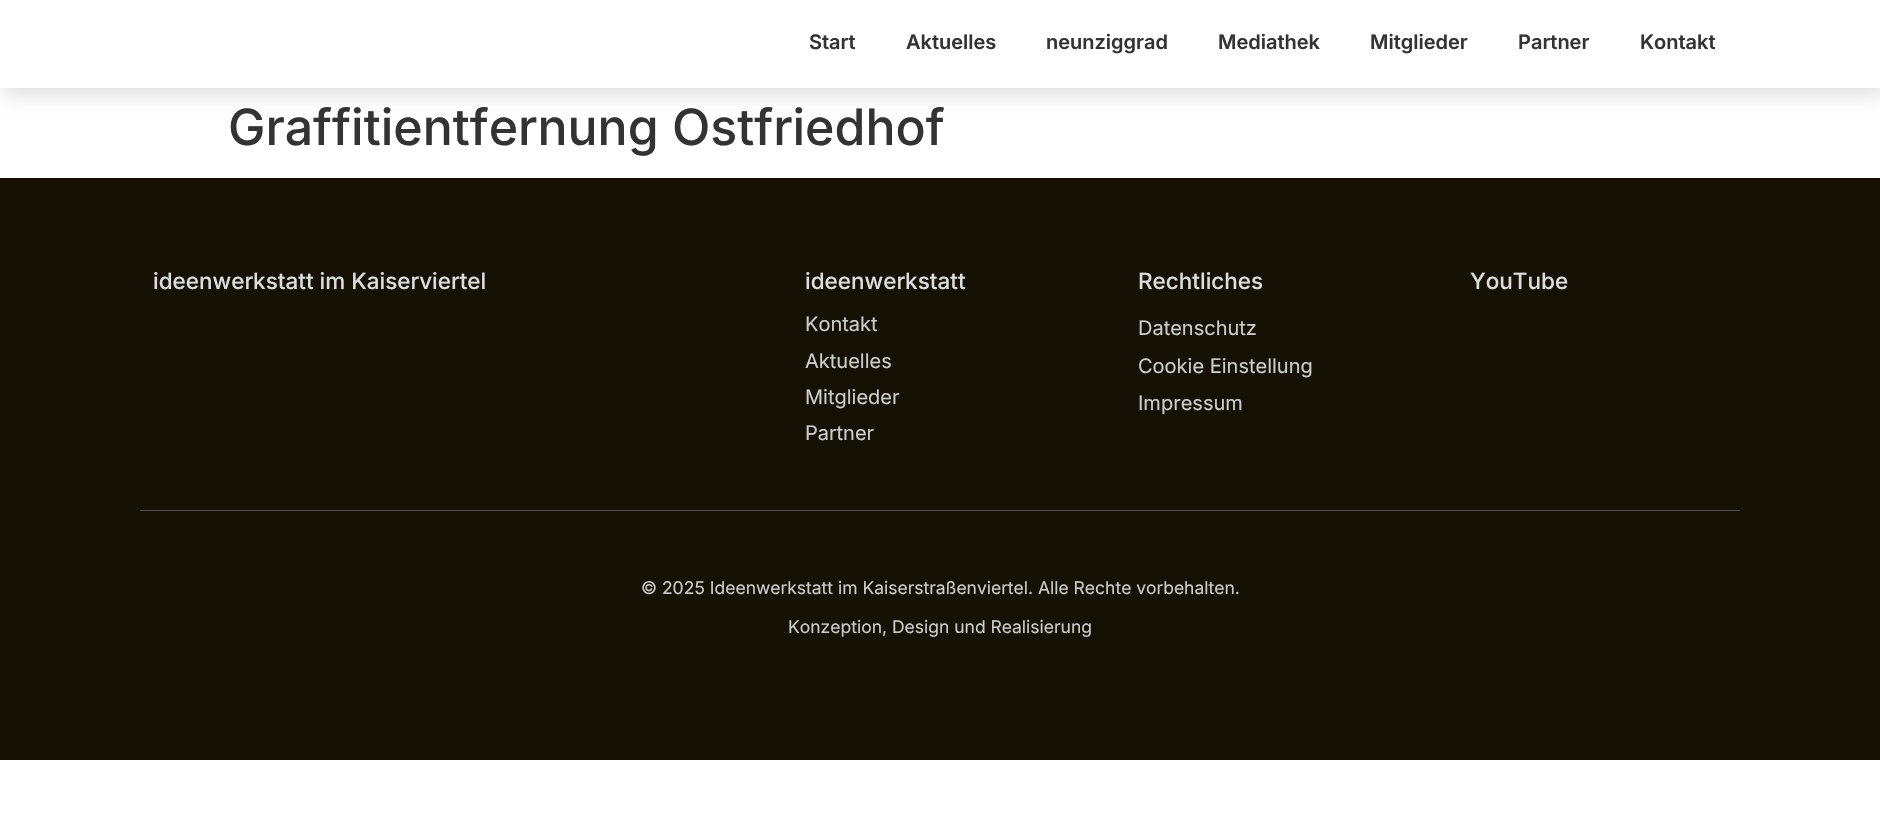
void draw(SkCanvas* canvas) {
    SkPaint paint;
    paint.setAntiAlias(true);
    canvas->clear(0xFFFFFFFF);
    paint.setColor(0x26000000);
    paint.setMaskFilter(SkMaskFilter::MakeBlur(kNormal_SkBlurStyle, 10));
    canvas->drawRect(SkRect::MakeXYWH(3, 5, 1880, 88), paint);
    paint.setMaskFilter(nullptr);
    paint.setColor(0xFFFFFFFF);
    canvas->drawRect(SkRect::MakeXYWH(0, 0, 1880, 88), paint);
    SkFont font1(fontMgr->matchFamilyStyle("Inter", SkFontStyle(600, SkFontStyle::kNormal_Width, SkFontStyle::kUpright_Slant)), 20);
    font1.setSubpixel(true);
    paint.setColor(0xFF333333);
    canvas->drawString("Start", 809, 49, font1, paint);
    canvas->drawString("Aktuelles", 906, 49, font1, paint);
    canvas->drawString("neunziggrad", 1046, 49, font1, paint);
    canvas->drawString("Mediathek", 1218, 49, font1, paint);
    canvas->drawString("Mitglieder", 1370, 49, font1, paint);
    canvas->drawString("Partner", 1518, 49, font1, paint);
    canvas->drawString("Kontakt", 1640, 49, font1, paint);
    SkFont font2(fontMgr->matchFamilyStyle("Inter", SkFontStyle(500, SkFontStyle::kNormal_Width, SkFontStyle::kUpright_Slant)), 50);
    font2.setSubpixel(true);
    canvas->drawString("Graffitientfernung Ostfriedhof", 228, 145, font2, paint);
    paint.setColor(0xFF151105);
    canvas->drawRect(SkRect::MakeXYWH(0, 178, 1880, 582), paint);
    SkFont font3(fontMgr->matchFamilyStyle("Inter", SkFontStyle(500, SkFontStyle::kNormal_Width, SkFontStyle::kUpright_Slant)), 22.5f);
    font3.setSubpixel(true);
    paint.setColor(0xFFDDDDDD);
    canvas->drawString("ideenwerkstatt im Kaiserviertel", 153, 289, font3, paint);
    canvas->drawString("ideenwerkstatt", 805, 289, font3, paint);
    SkFont font4(fontMgr->matchFamilyStyle("Inter", SkFontStyle::Normal()), 20);
    font4.setSubpixel(true);
    paint.setColor(0xFFCCCCCC);
    canvas->drawString("Kontakt", 805, 331, font4, paint);
    canvas->drawString("Aktuelles", 805, 368, font4, paint);
    canvas->drawString("Mitglieder", 805, 404, font4, paint);
    canvas->drawString("Partner", 805, 440, font4, paint);
    paint.setColor(0xFFDDDDDD);
    canvas->drawString("Rechtliches", 1138, 289, font3, paint);
    paint.setColor(0xFFCCCCCC);
    canvas->drawString("Datenschutz", 1138, 335, font4, paint);
    canvas->drawString("Cookie Einstellung", 1138, 373, font4, paint);
    canvas->drawString("Impressum", 1138, 410, font4, paint);
    paint.setColor(0xFFDDDDDD);
    canvas->drawString("YouTube", 1470, 289, font3, paint);
    paint.setColor(0xFF504E49);
    canvas->drawRect(SkRect::MakeXYWH(140, 510, 1600, 1), paint);
    SkFont font5(fontMgr->matchFamilyStyle("Inter", SkFontStyle::Normal()), 17.5f);
    font5.setSubpixel(true);
    paint.setColor(0xFFCCCCCC);
    canvas->drawString("© 2025 Ideenwerkstatt im Kaiserstraßenviertel. Alle Rechte vorbehalten.", 641, 594, font5, paint);
    canvas->drawString("Konzeption, Design und Realisierung", 788, 633, font5, paint);
}
